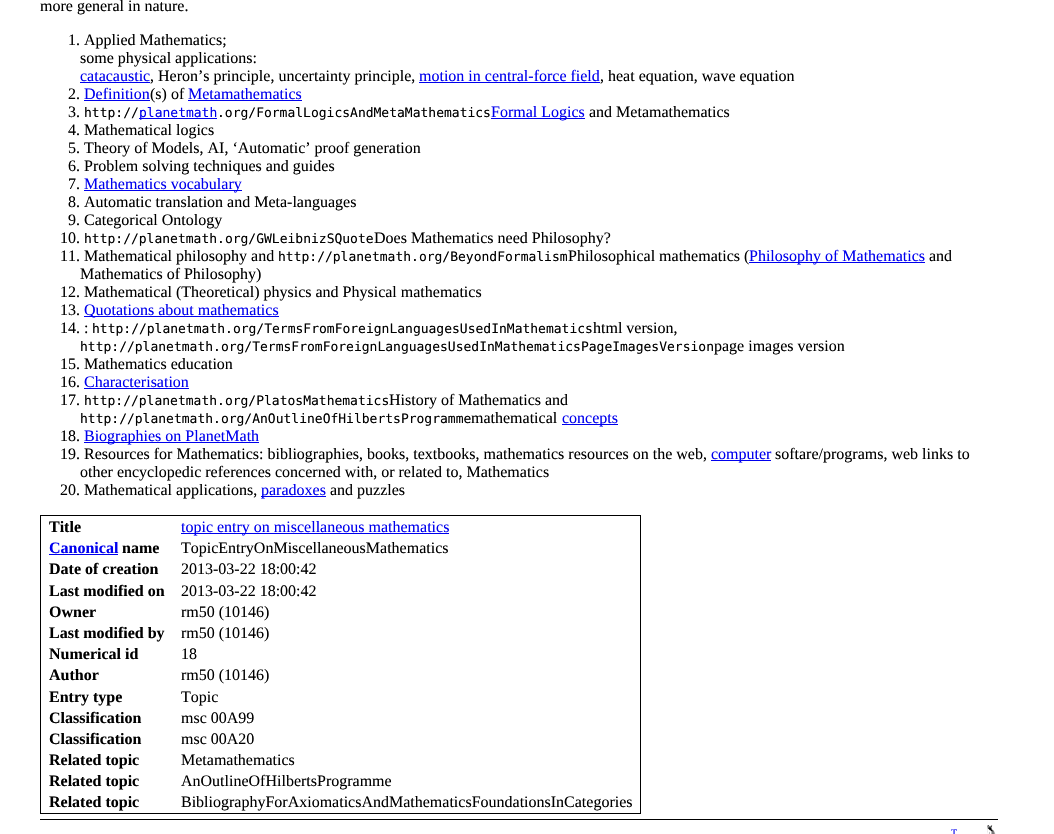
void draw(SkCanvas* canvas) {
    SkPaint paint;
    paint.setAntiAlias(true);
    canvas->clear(0xFFFFFFFF);
    SkFont font1(fontMgr->matchFamilyStyle("Liberation Serif", SkFontStyle::Normal()), 16);
    font1.setSubpixel(true);
    paint.setColor(0xFF000000);
    canvas->drawString("more general in nature.", 40, 11, font1, paint);
    canvas->drawString("1. Applied Mathematics;", 68, 45, font1, paint);
    canvas->drawString("some physical applications:", 80, 63, font1, paint);
    paint.setColor(0xFF0000EE);
    canvas->drawString("catacaustic", 80, 81, font1, paint);
    paint.setColor(0xFF000000);
    canvas->drawString(", Heron’s principle, uncertainty principle,", 150, 81, font1, paint);
    paint.setColor(0xFF0000EE);
    canvas->drawRect(SkRect::MakeXYWH(80, 82, 70, 1), paint);
    canvas->drawString("motion in central-force field", 419, 81, font1, paint);
    paint.setColor(0xFF000000);
    canvas->drawString(", heat equation, wave equation", 600, 81, font1, paint);
    paint.setColor(0xFF0000EE);
    canvas->drawRect(SkRect::MakeXYWH(419, 82, 181, 1), paint);
    paint.setColor(0xFF000000);
    canvas->drawString("2.", 68, 99, font1, paint);
    paint.setColor(0xFF0000EE);
    canvas->drawString("Definition", 84, 99, font1, paint);
    paint.setColor(0xFF000000);
    canvas->drawString("(s) of", 150, 99, font1, paint);
    paint.setColor(0xFF0000EE);
    canvas->drawRect(SkRect::MakeXYWH(84, 100, 66, 1), paint);
    canvas->drawString("Metamathematics", 188, 99, font1, paint);
    canvas->drawRect(SkRect::MakeXYWH(188, 100, 114, 1), paint);
    paint.setColor(0xFF000000);
    canvas->drawString("3.", 68, 117, font1, paint);
    SkFont font2(fontMgr->matchFamilyStyle("DejaVu Sans Mono", SkFontStyle::Normal()), 13);
    font2.setSubpixel(true);
    canvas->drawString("http://", 84, 117, font2, paint);
    paint.setColor(0xFF0000EE);
    canvas->drawRect(SkRect::MakeXYWH(139, 118, 78, 1), paint);
    canvas->drawString("planetmath", 139, 117, font2, paint);
    paint.setColor(0xFF000000);
    canvas->drawString(".org/FormalLogicsAndMetaMathematics", 217, 117, font2, paint);
    paint.setColor(0xFF0000EE);
    canvas->drawRect(SkRect::MakeXYWH(491, 118, 94, 1), paint);
    canvas->drawString("Formal Logics", 491, 117, font1, paint);
    paint.setColor(0xFF000000);
    canvas->drawString("and Metamathematics", 589, 117, font1, paint);
    canvas->drawString("4. Mathematical logics", 68, 135, font1, paint);
    canvas->drawString("5. Theory of Models, AI, ‘Automatic’ proof generation", 68, 153, font1, paint);
    canvas->drawString("6. Problem solving techniques and guides", 68, 171, font1, paint);
    canvas->drawString("7.", 68, 189, font1, paint);
    paint.setColor(0xFF0000EE);
    canvas->drawRect(SkRect::MakeXYWH(84, 190, 158, 1), paint);
    canvas->drawString("Mathematics vocabulary", 84, 189, font1, paint);
    paint.setColor(0xFF000000);
    canvas->drawString("8. Automatic translation and Meta-languages", 68, 207, font1, paint);
    canvas->drawString("9. Categorical Ontology", 68, 225, font1, paint);
    canvas->drawString("10.", 60, 243, font1, paint);
    canvas->drawString("http://planetmath.org/GWLeibnizSQuote", 84, 243, font2, paint);
    canvas->drawString("Does Mathematics need Philosophy?", 374, 243, font1, paint);
    canvas->drawString("11. Mathematical philosophy and", 60, 261, font1, paint);
    canvas->drawString("http://planetmath.org/BeyondFormalism", 278, 261, font2, paint);
    canvas->drawString("Philosophical mathematics (", 568, 261, font1, paint);
    paint.setColor(0xFF0000EE);
    canvas->drawRect(SkRect::MakeXYWH(749, 262, 176, 1), paint);
    canvas->drawString("Philosophy of Mathematics", 749, 261, font1, paint);
    paint.setColor(0xFF000000);
    canvas->drawString("and", 929, 261, font1, paint);
    canvas->drawString("Mathematics of Philosophy)", 80, 279, font1, paint);
    canvas->drawString("12. Mathematical (Theoretical) physics and Physical mathematics", 60, 297, font1, paint);
    canvas->drawString("13.", 60, 315, font1, paint);
    paint.setColor(0xFF0000EE);
    canvas->drawRect(SkRect::MakeXYWH(84, 316, 195, 1), paint);
    canvas->drawString("Quotations about mathematics", 84, 315, font1, paint);
    paint.setColor(0xFF000000);
    canvas->drawString("14. :", 60, 333, font1, paint);
    canvas->drawString("http://planetmath.org/TermsFromForeignLanguagesUsedInMathematics", 92, 333, font2, paint);
    canvas->drawString("html version,", 593, 333, font1, paint);
    canvas->drawString("http://planetmath.org/TermsFromForeignLanguagesUsedInMathematicsPageImagesVersion", 80, 351, font2, paint);
    canvas->drawString("page images version", 714, 351, font1, paint);
    canvas->drawString("15. Mathematics education", 60, 369, font1, paint);
    canvas->drawString("16.", 60, 387, font1, paint);
    paint.setColor(0xFF0000EE);
    canvas->drawString("Characterisation", 84, 387, font1, paint);
    canvas->drawRect(SkRect::MakeXYWH(84, 388, 105, 1), paint);
    paint.setColor(0xFF000000);
    canvas->drawString("17.", 60, 405, font1, paint);
    canvas->drawString("http://planetmath.org/PlatosMathematics", 84, 405, font2, paint);
    canvas->drawString("History of Mathematics and", 389, 405, font1, paint);
    canvas->drawString("http://planetmath.org/AnOutlineOfHilbertsProgramme", 80, 423, font2, paint);
    canvas->drawString("mathematical", 471, 423, font1, paint);
    paint.setColor(0xFF0000EE);
    canvas->drawRect(SkRect::MakeXYWH(562, 424, 56, 1), paint);
    canvas->drawString("concepts", 562, 423, font1, paint);
    paint.setColor(0xFF000000);
    canvas->drawString("18.", 60, 441, font1, paint);
    paint.setColor(0xFF0000EE);
    canvas->drawRect(SkRect::MakeXYWH(84, 442, 175, 1), paint);
    canvas->drawString("Biographies on PlanetMath", 84, 441, font1, paint);
    paint.setColor(0xFF000000);
    canvas->drawString("19. Resources for Mathematics: bibliographies, books, textbooks, mathematics resources on the web,", 60, 459, font1, paint);
    paint.setColor(0xFF0000EE);
    canvas->drawRect(SkRect::MakeXYWH(711, 460, 60, 1), paint);
    canvas->drawString("computer", 711, 459, font1, paint);
    paint.setColor(0xFF000000);
    canvas->drawString("softare/programs, web links to", 775, 459, font1, paint);
    canvas->drawString("other encyclopedic references concerned with, or related to, Mathematics", 80, 477, font1, paint);
    canvas->drawString("20. Mathematical applications,", 60, 495, font1, paint);
    paint.setColor(0xFF0000EE);
    canvas->drawRect(SkRect::MakeXYWH(261, 496, 65, 1), paint);
    canvas->drawString("paradoxes", 261, 495, font1, paint);
    paint.setColor(0xFF000000);
    canvas->drawString("and puzzles", 330, 495, font1, paint);
    canvas->drawRect(SkRect::MakeXYWH(40, 515, 601, 1), paint);
    canvas->drawRect(SkRect::MakeXYWH(640, 537, 1, 277), paint);
    canvas->drawRect(SkRect::MakeXYWH(40, 813, 601, 1), paint);
    canvas->drawRect(SkRect::MakeXYWH(40, 537, 1, 277), paint);
    canvas->drawRect(SkRect::MakeXYWH(40, 515, 1, 23), paint);
    SkFont font3(fontMgr->matchFamilyStyle("Liberation Serif", SkFontStyle::Bold()), 16);
    font3.setSubpixel(true);
    canvas->drawString("Title", 49, 532, font3, paint);
    canvas->drawRect(SkRect::MakeXYWH(640, 515, 1, 23), paint);
    paint.setColor(0xFF0000EE);
    canvas->drawRect(SkRect::MakeXYWH(181, 533, 268, 1), paint);
    canvas->drawString("topic entry on miscellaneous mathematics", 181, 532, font1, paint);
    canvas->drawString("Canonical", 49, 553, font3, paint);
    canvas->drawRect(SkRect::MakeXYWH(49, 554, 69, 1), paint);
    paint.setColor(0xFF000000);
    canvas->drawString("name", 122, 553, font3, paint);
    canvas->drawString("TopicEntryOnMiscellaneousMathematics", 181, 553, font1, paint);
    canvas->drawString("Date of creation", 49, 574, font3, paint);
    canvas->drawString("2013-03-22 18:00:42", 181, 574, font1, paint);
    canvas->drawString("Last modified on", 49, 596, font3, paint);
    canvas->drawString("2013-03-22 18:00:42", 181, 596, font1, paint);
    canvas->drawString("Owner", 49, 617, font3, paint);
    canvas->drawString("rm50 (10146)", 181, 617, font1, paint);
    canvas->drawString("Last modified by", 49, 638, font3, paint);
    canvas->drawString("rm50 (10146)", 181, 638, font1, paint);
    canvas->drawString("Numerical id", 49, 659, font3, paint);
    canvas->drawString("18", 181, 659, font1, paint);
    canvas->drawString("Author", 49, 680, font3, paint);
    canvas->drawString("rm50 (10146)", 181, 680, font1, paint);
    canvas->drawString("Entry type", 49, 702, font3, paint);
    canvas->drawString("Topic", 181, 702, font1, paint);
    canvas->drawString("Classification", 49, 723, font3, paint);
    canvas->drawString("msc 00A99", 181, 723, font1, paint);
    canvas->drawString("Classification", 49, 744, font3, paint);
    canvas->drawString("msc 00A20", 181, 744, font1, paint);
    canvas->drawString("Related topic", 49, 765, font3, paint);
    canvas->drawString("Metamathematics", 181, 765, font1, paint);
    canvas->drawString("Related topic", 49, 786, font3, paint);
    canvas->drawString("AnOutlineOfHilbertsProgramme", 181, 786, font1, paint);
    canvas->drawString("Related topic", 49, 807, font3, paint);
    canvas->drawString("BibliographyForAxiomaticsAndMathematicsFoundationsInCategories", 181, 807, font1, paint);
    canvas->drawRect(SkRect::MakeXYWH(40, 819, 958, 1), paint);
    SkFont font4(fontMgr->matchFamilyStyle("Liberation Serif", SkFontStyle::Normal()), 10);
    font4.setSubpixel(true);
    paint.setColor(0xFF0000EE);
    canvas->drawString("T", 951, 836, font4, paint);
    canvas->drawImageRect(SkImages::DeferredFromEncodedData(SkData::MakeFromFileName("img1.png")), SkRect::MakeXYWH(987, 825, 9, 9), SkSamplingOptions());
}
